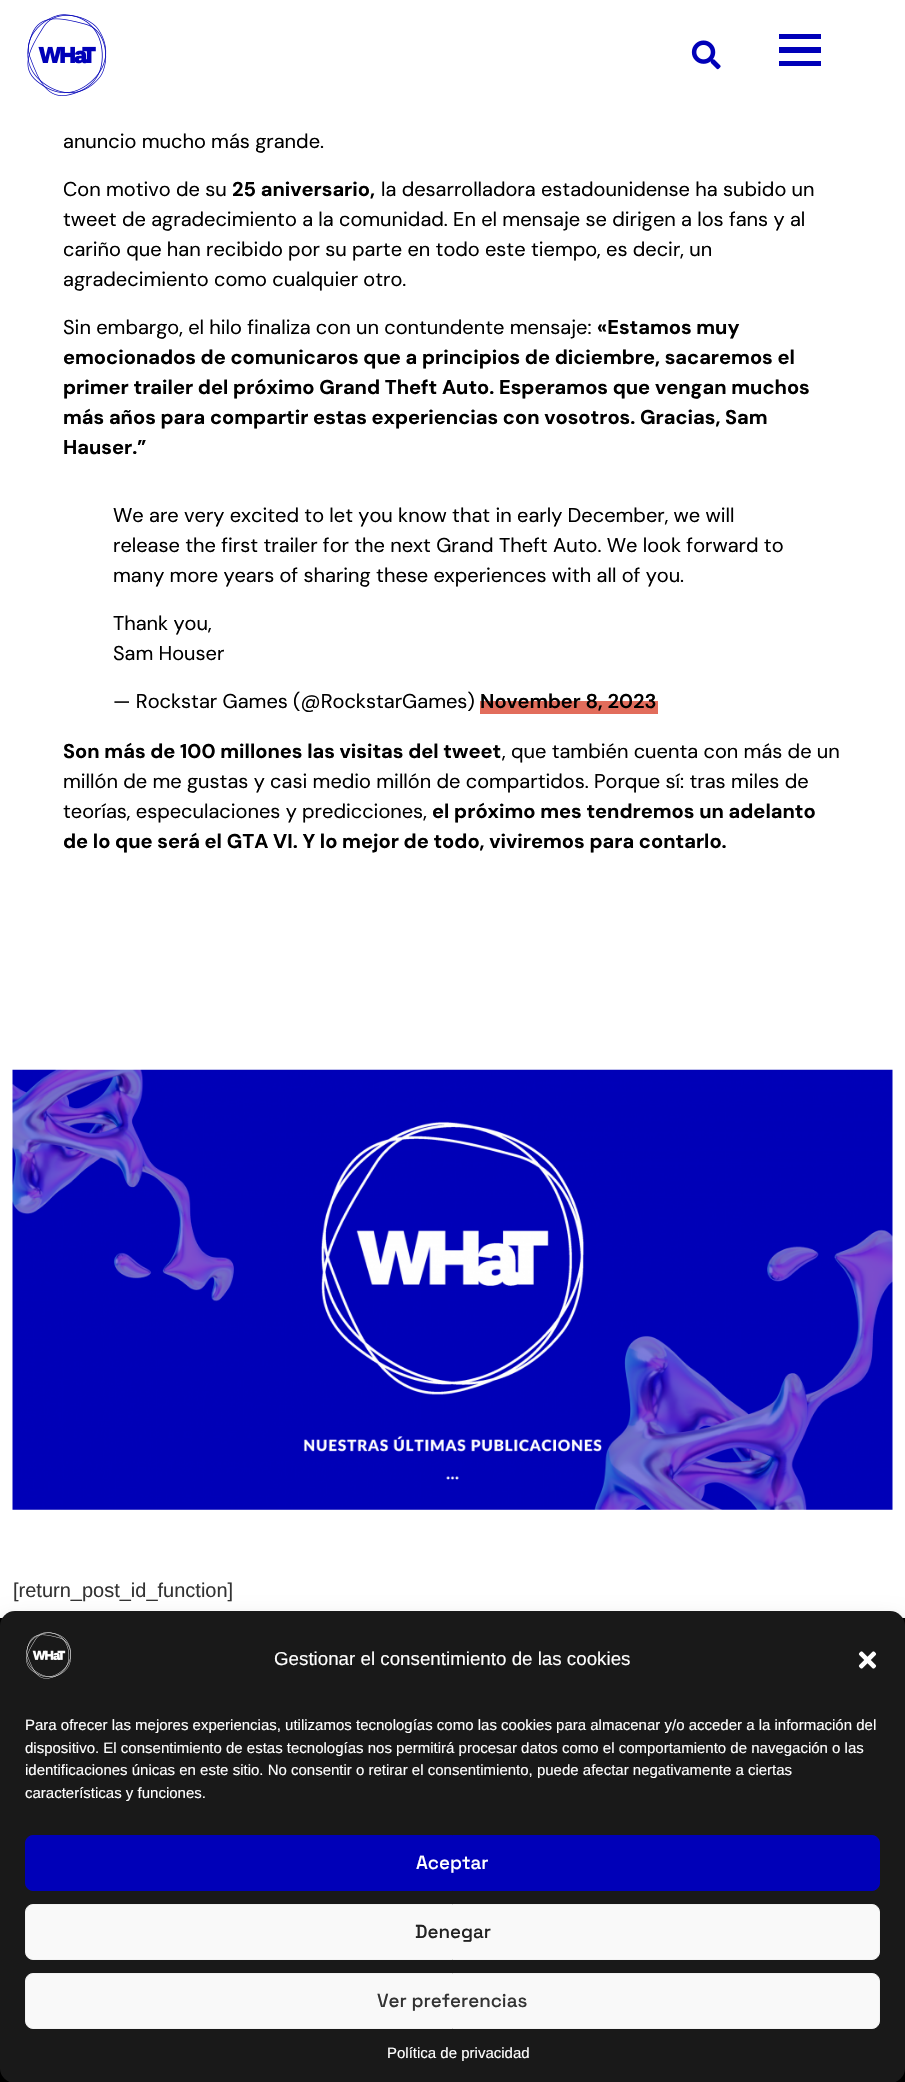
void draw(SkCanvas* canvas) {
    SkPaint paint;
    paint.setAntiAlias(true);
    canvas->clear(0xFFFFFFFF);
    canvas->drawImageRect(SkImages::DeferredFromEncodedData(SkData::MakeFromFileName("img1.png")), SkRect::MakeXYWH(27, 14, 80, 82), SkSamplingOptions());
    canvas->drawImageRect(SkImages::DeferredFromEncodedData(SkData::MakeFromFileName("img2.png")), SkRect::MakeXYWH(691, 40, 30, 30), SkSamplingOptions());
    paint.setColor(0xFF0000B8);
    canvas->drawPath(SkPathBuilder().moveTo(779, 47).lineTo(821, 47).lineTo(821, 53).lineTo(779, 53).close().moveTo(779, 34).lineTo(821, 34).lineTo(821, 39).lineTo(779, 39).close().moveTo(779, 61).lineTo(821, 61).lineTo(821, 66).lineTo(779, 66).close().detach(), paint);
    SkFont font1(fontMgr->matchFamilyStyle("DM Sans", SkFontStyle::Normal()), 20);
    font1.setSubpixel(true);
    paint.setColor(0xFF000000);
    canvas->drawString("anuncio mucho más grande.", 63, 148, font1, paint);
    canvas->drawString("Con motivo de su", 63, 196, font1, paint);
    SkFont font2(fontMgr->matchFamilyStyle("DM Sans", SkFontStyle::Bold()), 20);
    font2.setSubpixel(true);
    canvas->drawString("25 aniversario,", 232, 196, font2, paint);
    canvas->drawString("la desarrolladora estadounidense ha subido un", 381, 196, font1, paint);
    canvas->drawString("tweet de agradecimiento a la comunidad. En el mensaje se dirigen a los fans y al", 63, 226, font1, paint);
    canvas->drawString("cariño que han recibido por su parte en todo este tiempo, es decir, un", 63, 256, font1, paint);
    canvas->drawString("agradecimiento como cualquier otro.", 63, 286, font1, paint);
    canvas->drawString("Sin embargo, el hilo finaliza con un contundente mensaje:", 63, 334, font1, paint);
    canvas->drawString("«Estamos muy", 597, 334, font2, paint);
    canvas->drawString("emocionados de comunicaros que a principios de diciembre, sacaremos el", 63, 364, font2, paint);
    canvas->drawString("primer trailer del próximo Grand Theft Auto. Esperamos que vengan muchos", 63, 394, font2, paint);
    canvas->drawString("más años para compartir estas experiencias con vosotros. Gracias, Sam", 63, 424, font2, paint);
    canvas->drawString("Hauser.”", 63, 454, font2, paint);
    canvas->drawString("We are very excited to let you know that in early December, we will", 113, 522, font1, paint);
    canvas->drawString("release the first trailer for the next Grand Theft Auto. We look forward to", 113, 552, font1, paint);
    canvas->drawString("many more years of sharing these experiences with all of you.", 113, 582, font1, paint);
    canvas->drawString("Thank you,", 113, 630, font1, paint);
    canvas->drawString("Sam Houser", 113, 660, font1, paint);
    canvas->drawString("— Rockstar Games (@RockstarGames)", 113, 708, font1, paint);
    paint.setColor(0xFFE26D5C);
    canvas->drawRect(SkRect::MakeXYWH(480, 701, 178, 13), paint);
    SkFont font3(fontMgr->matchFamilyStyle("DM Sans", SkFontStyle(600, SkFontStyle::kNormal_Width, SkFontStyle::kUpright_Slant)), 20);
    font3.setSubpixel(true);
    paint.setColor(0xFF000000);
    canvas->drawString("November 8, 2023", 480, 708, font3, paint);
    canvas->drawString("Son más de 100 millones las visitas del tweet", 63, 758, font2, paint);
    canvas->drawString(", que también cuenta con más de un", 502, 758, font1, paint);
    canvas->drawString("millón de me gustas y casi medio millón de compartidos. Porque sí: tras miles de", 63, 788, font1, paint);
    canvas->drawString("teorías, especulaciones y predicciones,", 63, 818, font1, paint);
    canvas->drawString("el próximo mes tendremos un adelanto", 432, 818, font2, paint);
    canvas->drawString("de lo que será el GTA VI. Y lo mejor de todo, viviremos para contarlo.", 63, 848, font2, paint);
    canvas->drawImageRect(SkImages::DeferredFromEncodedData(SkData::MakeFromFileName("img3.png")), SkRect::MakeXYWH(12, 1069, 881, 441), SkSamplingOptions());
    SkFont font4(fontMgr->matchFamilyStyle("Liberation Sans", SkFontStyle::Normal()), 20);
    font4.setSubpixel(true);
    paint.setColor(0xFF333333);
    canvas->drawString("[return_post_id_function]", 13, 1597, font4, paint);
    paint.setColor(0xFF000000);
    canvas->drawRect(SkRect::MakeXYWH(0, 1618, 905, 464), paint);
    paint.setColor(0x3B000000);
    paint.setMaskFilter(SkMaskFilter::MakeBlur(kNormal_SkBlurStyle, 4));
    canvas->drawRoundRect(SkRect::MakeXYWH(0, 1619, 905, 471), 15, 15, paint);
    paint.setMaskFilter(nullptr);
    paint.setColor(0x30000000);
    paint.setMaskFilter(SkMaskFilter::MakeBlur(kNormal_SkBlurStyle, 12.5f));
    canvas->drawRoundRect(SkRect::MakeXYWH(0, 1624, 905, 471), 15, 15, paint);
    paint.setMaskFilter(nullptr);
    paint.setColor(0xFF191919);
    canvas->drawRoundRect(SkRect::MakeXYWH(0, 1611, 905, 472), 15, 15, paint);
    canvas->drawImageRect(SkImages::DeferredFromEncodedData(SkData::MakeFromFileName("img4.png")), SkRect::MakeXYWH(26, 1632, 45, 47), SkSamplingOptions());
    SkFont font5(fontMgr->matchFamilyStyle("Liberation Sans", SkFontStyle::Normal()), 18.75f);
    font5.setSubpixel(true);
    paint.setColor(0xFFFFFFFF);
    canvas->drawString("Gestionar el consentimiento de las cookies", 274, 1665, font5, paint);
    canvas->drawImageRect(SkImages::DeferredFromEncodedData(SkData::MakeFromFileName("img5.png")), SkRect::MakeXYWH(858, 1651, 19, 18), SkSamplingOptions());
    SkFont font6(fontMgr->matchFamilyStyle("Liberation Sans", SkFontStyle::Normal()), 15);
    font6.setSubpixel(true);
    canvas->drawString("Para ofrecer las mejores experiencias, utilizamos tecnologías como las cookies para almacenar y/o acceder a la información del", 25, 1730, font6, paint);
    canvas->drawString("dispositivo. El consentimiento de estas tecnologías nos permitirá procesar datos como el comportamiento de navegación o las", 25, 1753, font6, paint);
    canvas->drawString("identificaciones únicas en este sitio. No consentir o retirar el consentimiento, puede afectar negativamente a ciertas", 25, 1775, font6, paint);
    canvas->drawString("características y funciones.", 25, 1798, font6, paint);
    paint.setColor(0xFF0000B8);
    canvas->drawRoundRect(SkRect::MakeXYWH(25.5f, 1835.5f, 854, 55), 7.5f, 7.5f, paint);
    paint.setStyle(SkPaint::kStroke_Style);
    paint.setStrokeWidth(1);
    canvas->drawRoundRect(SkRect::MakeXYWH(25.5f, 1835.5f, 854, 55), 7.5f, 7.5f, paint);
    SkFont font7(fontMgr->matchFamilyStyle("Space Grotesk", SkFontStyle(500, SkFontStyle::kNormal_Width, SkFontStyle::kUpright_Slant)), 18.75f);
    font7.setSubpixel(true);
    paint.setStyle(SkPaint::kFill_Style);
    paint.setColor(0xFFFFFFFF);
    canvas->drawString("Aceptar", 416, 1869, font7, paint);
    paint.setColor(0xFFF9F9F9);
    canvas->drawRoundRect(SkRect::MakeXYWH(25.5f, 1904.5f, 854, 55), 7.5f, 7.5f, paint);
    paint.setStyle(SkPaint::kStroke_Style);
    paint.setColor(0xFFF2F2F2);
    canvas->drawRoundRect(SkRect::MakeXYWH(25.5f, 1904.5f, 854, 55), 7.5f, 7.5f, paint);
    paint.setStyle(SkPaint::kFill_Style);
    paint.setColor(0xFF222222);
    canvas->drawString("Denegar", 415, 1938, font7, paint);
    paint.setColor(0xFFF9F9F9);
    canvas->drawRoundRect(SkRect::MakeXYWH(25.5f, 1973.5f, 854, 55), 7.5f, 7.5f, paint);
    paint.setStyle(SkPaint::kStroke_Style);
    paint.setColor(0xFFF2F2F2);
    canvas->drawRoundRect(SkRect::MakeXYWH(25.5f, 1973.5f, 854, 55), 7.5f, 7.5f, paint);
    paint.setStyle(SkPaint::kFill_Style);
    paint.setColor(0xFF333333);
    canvas->drawString("Ver preferencias", 377, 2007, font7, paint);
    paint.setColor(0xFFFFFFFF);
    canvas->drawString("Política de privacidad", 387, 2058, font6, paint);
}
